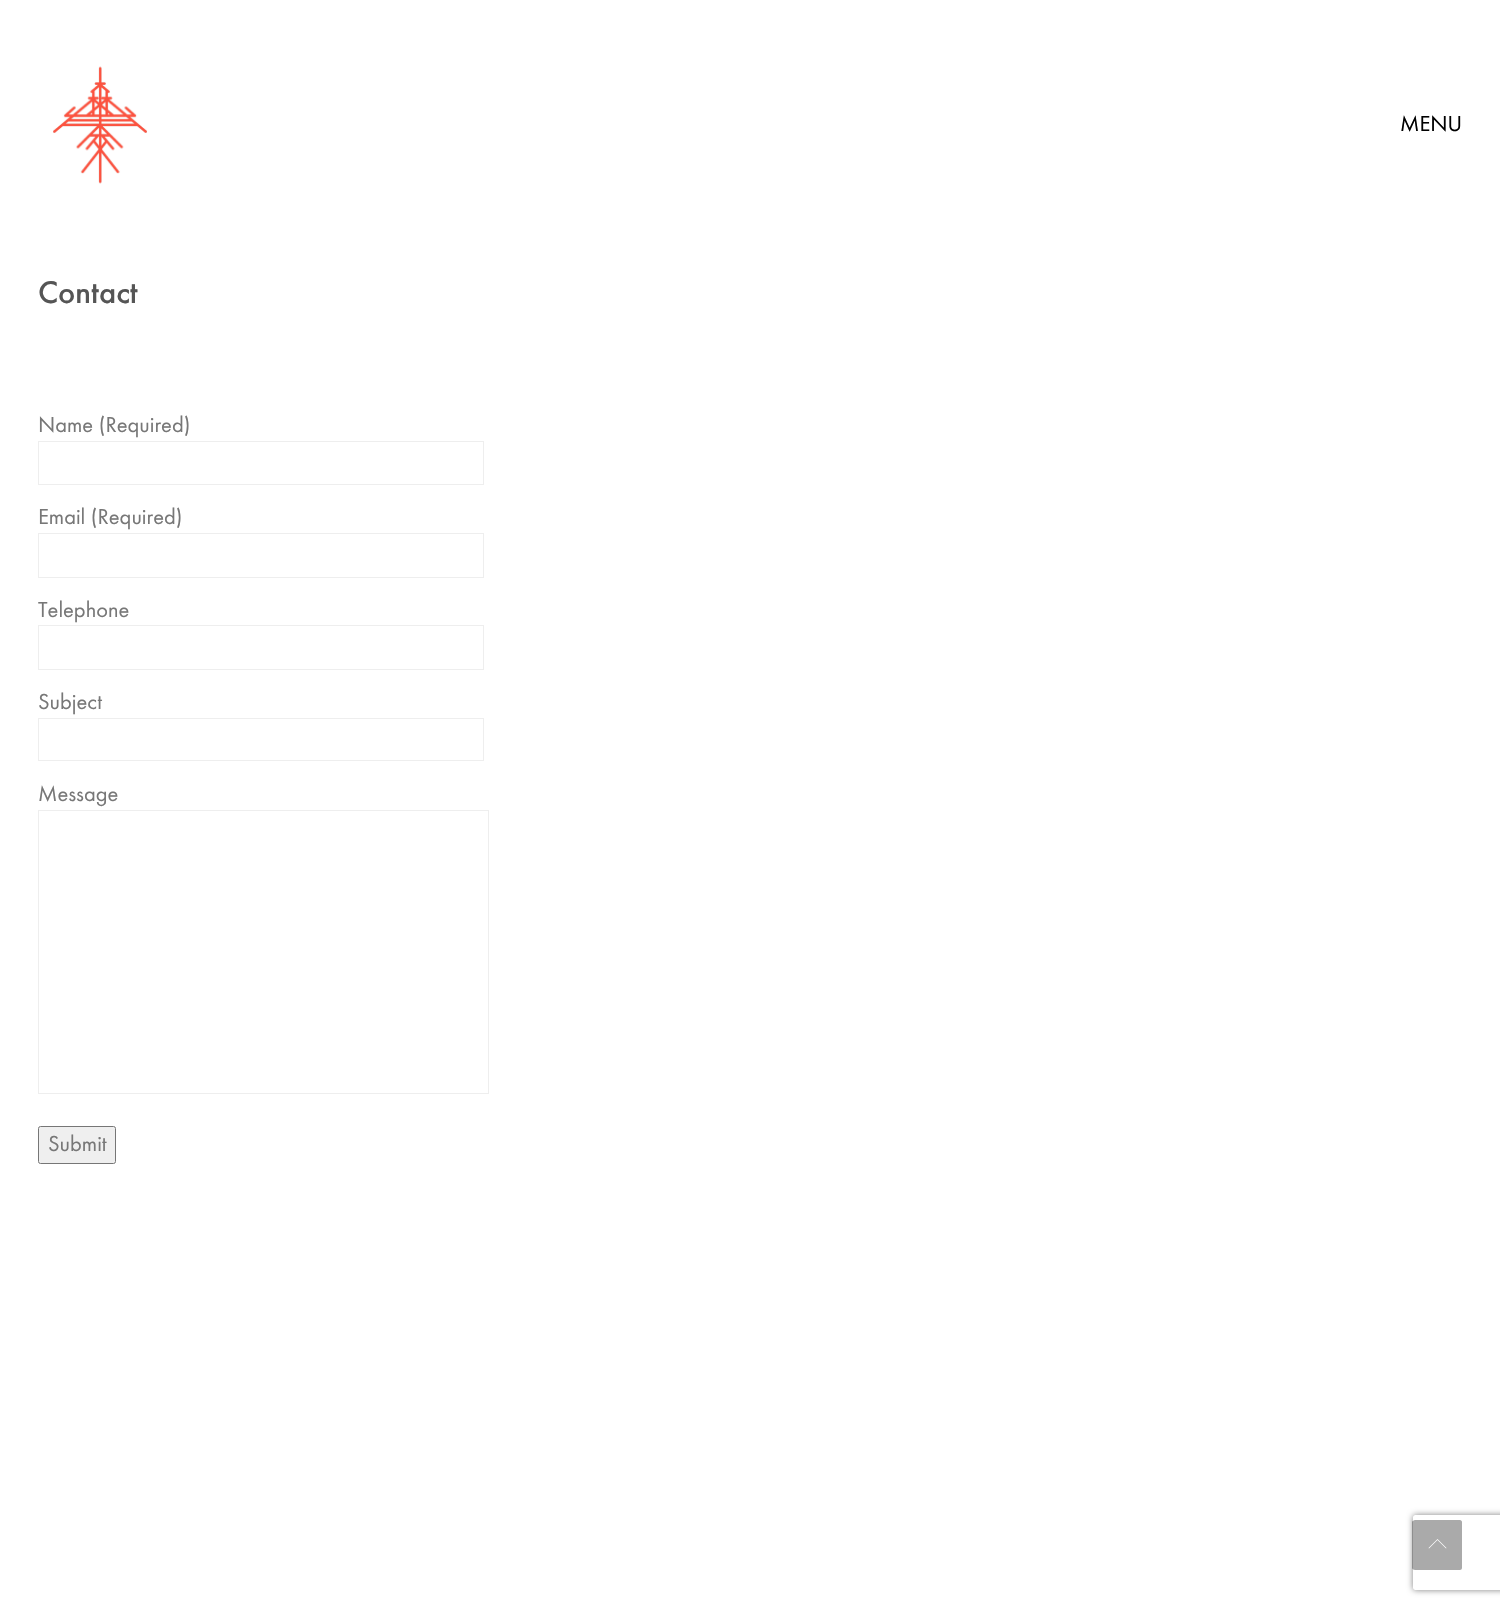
void draw(SkCanvas* canvas) {
    SkPaint paint;
    paint.setAntiAlias(true);
    canvas->clear(0xFFFFFFFF);
    canvas->drawImageRect(SkImages::DeferredFromEncodedData(SkData::MakeFromFileName("img1.png")), SkRect::MakeXYWH(53, 66, 94, 118), SkSamplingOptions());
    SkFont font1(fontMgr->matchFamilyStyle("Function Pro", SkFontStyle::Normal()), 22.5f);
    font1.setSubpixel(true);
    paint.setColor(0xFF000000);
    canvas->drawString("MENU", 1400, 131, font1, paint);
    SkFont font2(fontMgr->matchFamilyStyle("Function Pro", SkFontStyle(500, SkFontStyle::kNormal_Width, SkFontStyle::kUpright_Slant)), 32.5f);
    font2.setSubpixel(true);
    paint.setColor(0xFF555555);
    canvas->drawString("Contact", 38, 303, font2, paint);
    paint.setColor(0xFF777777);
    canvas->drawString("Name (Required)", 38, 432, font1, paint);
    paint.setStyle(SkPaint::kStroke_Style);
    paint.setStrokeWidth(1);
    paint.setColor(0xFFEEEEEE);
    canvas->drawRect(SkRect::MakeXYWH(38.5f, 441.5f, 445, 43), paint);
    paint.setStyle(SkPaint::kFill_Style);
    paint.setColor(0xFF777777);
    canvas->drawString("Email (Required)", 38, 524, font1, paint);
    paint.setStyle(SkPaint::kStroke_Style);
    paint.setColor(0xFFEEEEEE);
    canvas->drawRect(SkRect::MakeXYWH(38.5f, 533.5f, 445, 44), paint);
    paint.setStyle(SkPaint::kFill_Style);
    paint.setColor(0xFF777777);
    canvas->drawString("Telephone", 38, 617, font1, paint);
    paint.setStyle(SkPaint::kStroke_Style);
    paint.setColor(0xFFEEEEEE);
    canvas->drawRect(SkRect::MakeXYWH(38.5f, 625.5f, 445, 44), paint);
    paint.setStyle(SkPaint::kFill_Style);
    paint.setColor(0xFF777777);
    canvas->drawString("Subject", 38, 709, font1, paint);
    paint.setStyle(SkPaint::kStroke_Style);
    paint.setColor(0xFFEEEEEE);
    canvas->drawRect(SkRect::MakeXYWH(38.5f, 718.5f, 445, 42), paint);
    paint.setStyle(SkPaint::kFill_Style);
    paint.setColor(0xFF777777);
    canvas->drawString("Message", 38, 801, font1, paint);
    paint.setStyle(SkPaint::kStroke_Style);
    paint.setColor(0xFFEEEEEE);
    canvas->drawRect(SkRect::MakeXYWH(38.5f, 810.5f, 450, 283), paint);
    paint.setStyle(SkPaint::kFill_Style);
    paint.setColor(0xFFEFEFEF);
    canvas->drawRoundRect(SkRect::MakeXYWH(38.5f, 1126.5f, 77, 37), 2, 2, paint);
    paint.setStyle(SkPaint::kStroke_Style);
    paint.setColor(0xFF767676);
    canvas->drawRoundRect(SkRect::MakeXYWH(38.5f, 1126.5f, 77, 37), 2, 2, paint);
    paint.setStyle(SkPaint::kFill_Style);
    paint.setColor(0xFF777777);
    canvas->drawString("Submit", 48, 1151, font1, paint);
    canvas->save();
    canvas->clipPath(SkPathBuilder(SkPathFillType::kEvenOdd).moveTo(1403, 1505).lineTo(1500, 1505).lineTo(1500, 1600).lineTo(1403, 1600).close().moveTo(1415.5f, 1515).lineTo(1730.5f, 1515).cubicTo(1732, 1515, 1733, 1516, 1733, 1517.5f).lineTo(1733, 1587.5f).cubicTo(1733, 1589, 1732, 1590, 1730.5f, 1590).lineTo(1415.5f, 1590).cubicTo(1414, 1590, 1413, 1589, 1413, 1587.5f).lineTo(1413, 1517.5f).cubicTo(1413, 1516, 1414, 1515, 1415.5f, 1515).close().detach(), true);
    paint.setColor(0xFF808080);
    paint.setMaskFilter(SkMaskFilter::MakeBlur(kNormal_SkBlurStyle, 3));
    canvas->drawRoundRect(SkRect::MakeXYWH(1413, 1515, 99, 75), 2.5f, 2.5f, paint);
    paint.setMaskFilter(nullptr);
    canvas->restore();
    paint.setColor(0x80555555);
    canvas->drawPath(SkPathBuilder().moveTo(1460, 1570).lineTo(1415, 1570).cubicTo(1414, 1570, 1412, 1569, 1412, 1568).lineTo(1412, 1522).cubicTo(1412, 1521, 1414, 1520, 1415, 1520).lineTo(1460, 1520).cubicTo(1461, 1520, 1462, 1521, 1462, 1522).lineTo(1462, 1568).cubicTo(1462, 1569, 1461, 1570, 1460, 1570).close().detach(), paint);
    paint.setColor(0xFFFFFFFF);
    canvas->drawPath(SkPathBuilder().moveTo(1437.5f, 1539).lineTo(1446.5f, 1548).lineTo(1446, 1548.5f).lineTo(1437.5f, 1540).lineTo(1429, 1548.5f).lineTo(1428.5f, 1548).close().detach(), paint);
}
